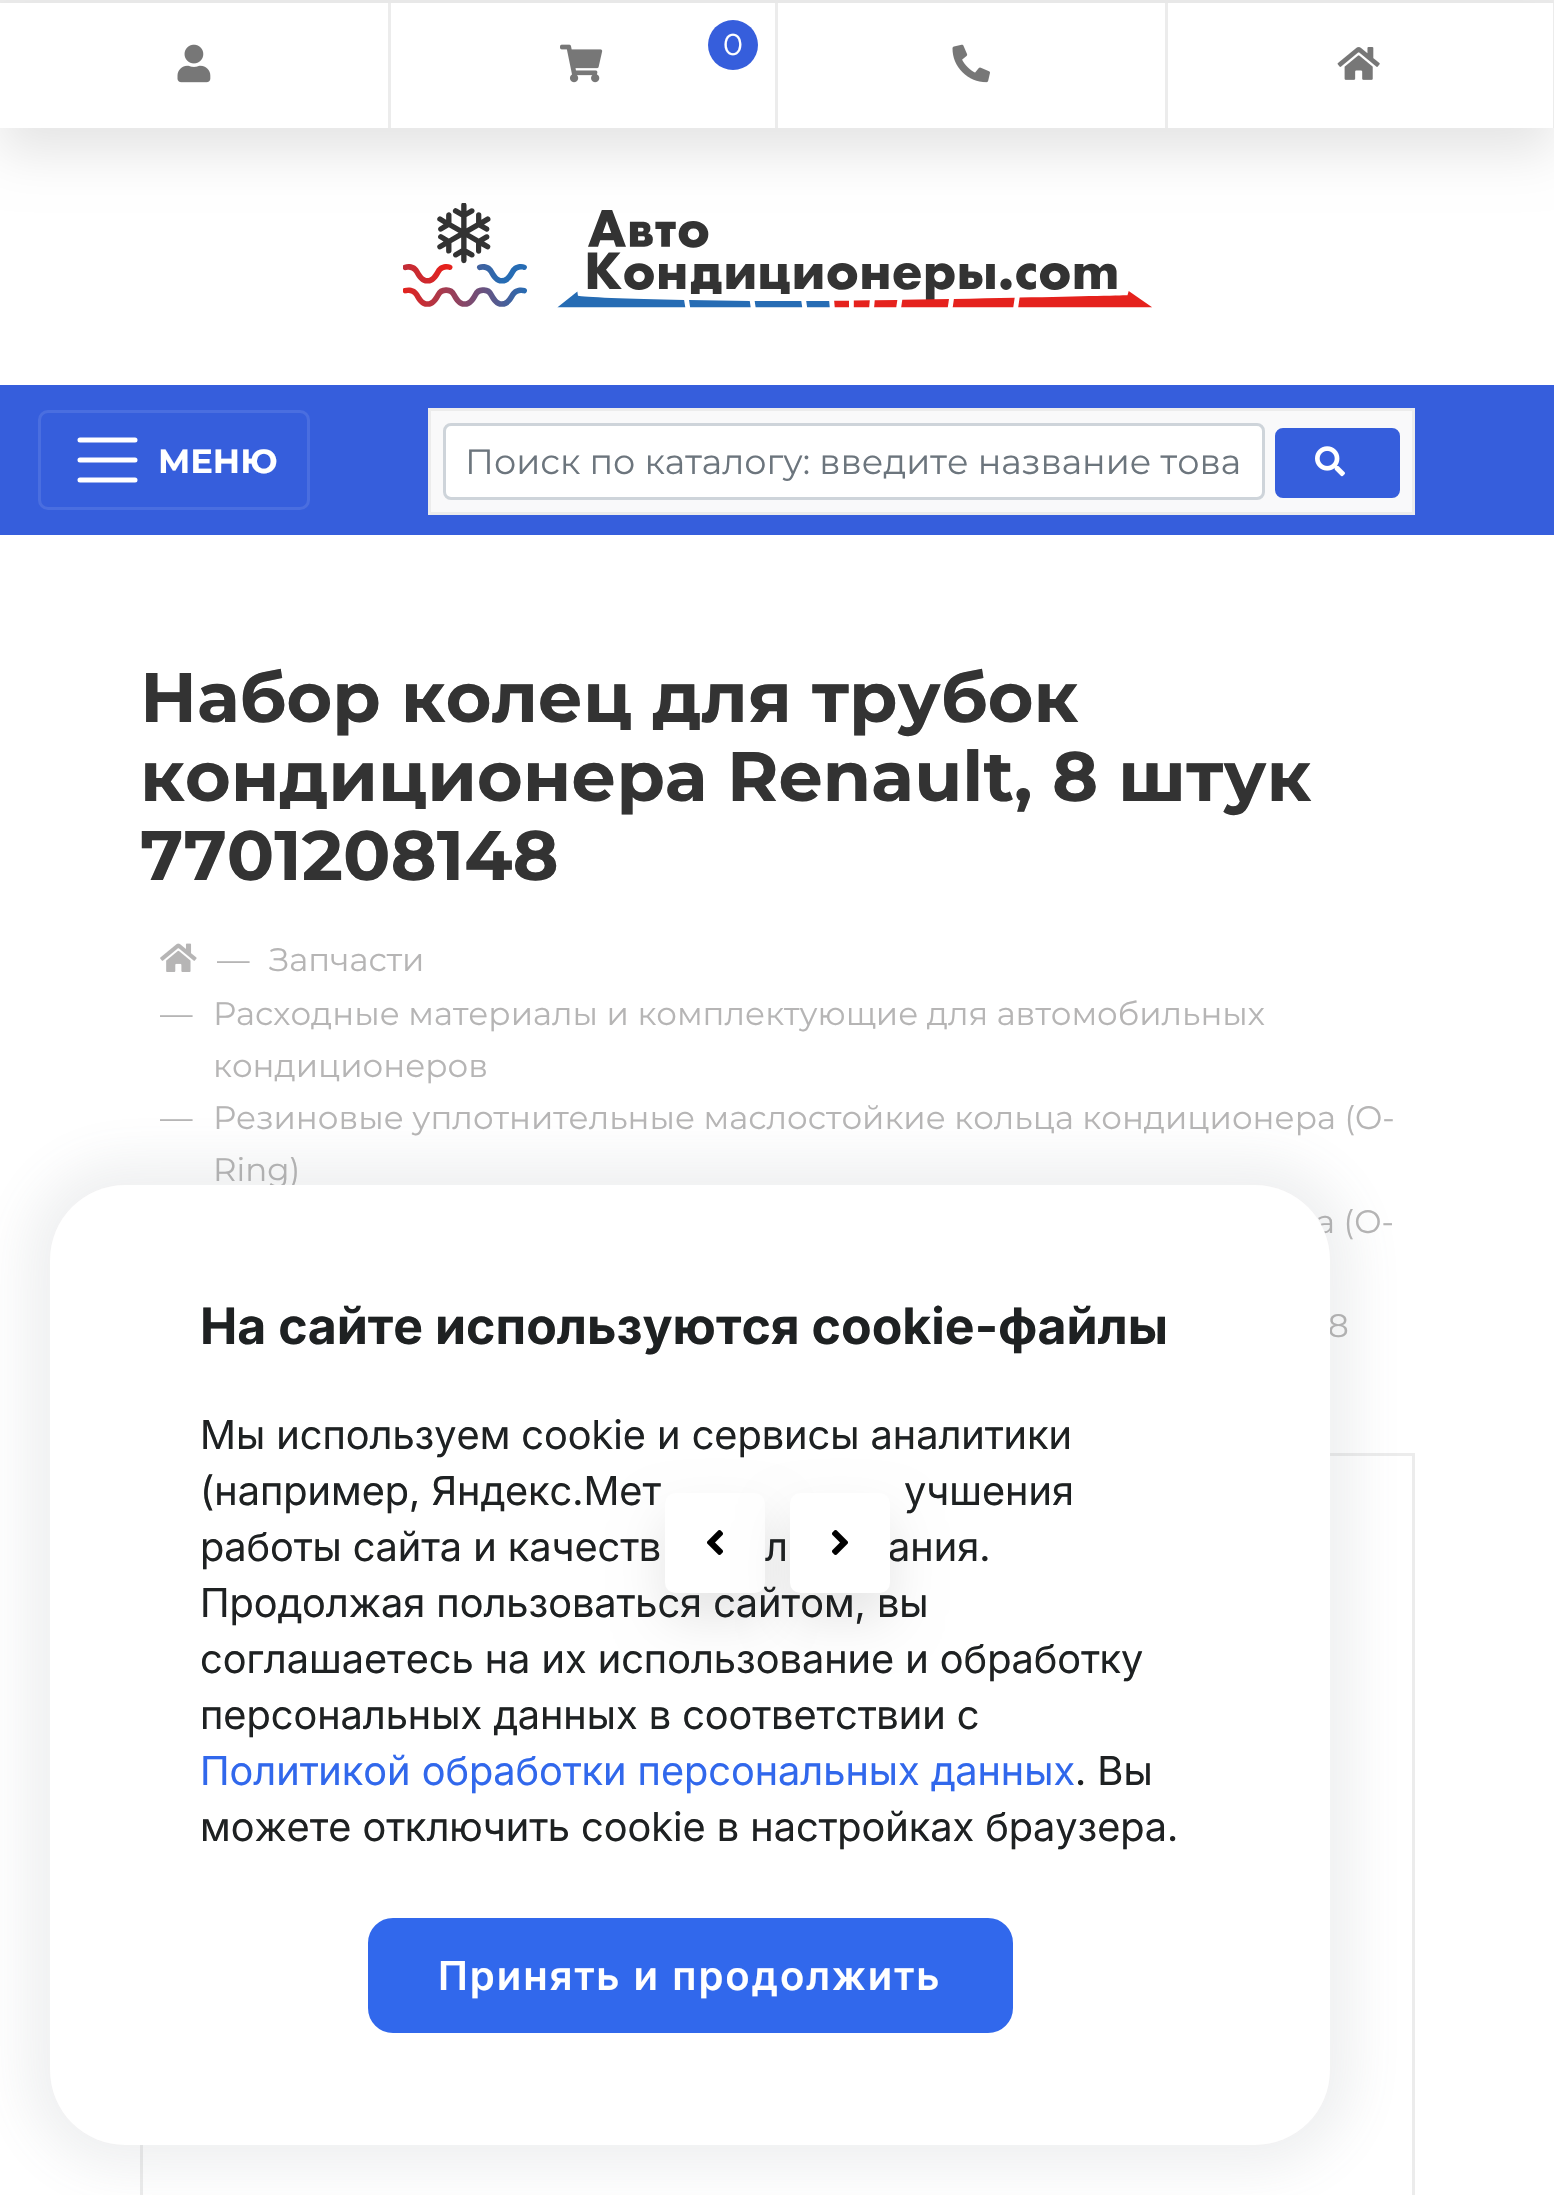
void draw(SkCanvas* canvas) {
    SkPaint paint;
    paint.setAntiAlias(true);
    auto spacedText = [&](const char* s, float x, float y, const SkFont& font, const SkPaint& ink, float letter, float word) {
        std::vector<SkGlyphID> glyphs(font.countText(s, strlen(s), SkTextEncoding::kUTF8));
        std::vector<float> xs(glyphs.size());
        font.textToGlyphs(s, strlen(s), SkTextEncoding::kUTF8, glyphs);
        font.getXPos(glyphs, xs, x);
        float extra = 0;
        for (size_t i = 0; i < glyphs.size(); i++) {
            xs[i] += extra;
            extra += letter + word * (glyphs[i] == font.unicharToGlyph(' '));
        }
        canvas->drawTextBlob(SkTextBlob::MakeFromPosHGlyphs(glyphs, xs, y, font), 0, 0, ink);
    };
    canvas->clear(0xFFFFFFFF);
    paint.setColor(0xFFECECEC);
    canvas->drawRect(SkRect::MakeXYWH(0, 0, 1554, 3), paint);
    canvas->drawImageRect(SkImages::DeferredFromEncodedData(SkData::MakeFromFileName("img5.png")), SkRect::MakeXYWH(403, 203, 749, 105), SkSamplingOptions());
    paint.setColor(0x1A000000);
    paint.setMaskFilter(SkMaskFilter::MakeBlur(kNormal_SkBlurStyle, 25));
    canvas->drawRect(SkRect::MakeXYWH(0, 28, 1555, 125), paint);
    paint.setMaskFilter(nullptr);
    paint.setColor(0xFFFFFFFF);
    canvas->drawRect(SkRect::MakeXYWH(0, 3, 1553, 125), paint);
    paint.setColor(0xFFECECEC);
    canvas->drawRect(SkRect::MakeXYWH(388, 3, 3, 125), paint);
    canvas->drawImageRect(SkImages::DeferredFromEncodedData(SkData::MakeFromFileName("img1.png")), SkRect::MakeXYWH(177, 44, 34, 39), SkSamplingOptions());
    canvas->drawRect(SkRect::MakeXYWH(775, 3, 3, 125), paint);
    canvas->drawImageRect(SkImages::DeferredFromEncodedData(SkData::MakeFromFileName("img2.png")), SkRect::MakeXYWH(560, 44, 43, 39), SkSamplingOptions());
    paint.setColor(0xFF365EDC);
    canvas->drawCircle(733, 45, 25, paint);
    SkFont font1(fontMgr->matchFamilyStyle("Montserrat", SkFontStyle::Normal()), 30);
    font1.setSubpixel(true);
    paint.setColor(0xFFFFFFFF);
    canvas->drawString("0", 723, 55, font1, paint);
    paint.setColor(0xFFECECEC);
    canvas->drawRect(SkRect::MakeXYWH(1165, 3, 3, 125), paint);
    canvas->drawImageRect(SkImages::DeferredFromEncodedData(SkData::MakeFromFileName("img3.png")), SkRect::MakeXYWH(952, 44, 38, 39), SkSamplingOptions());
    canvas->drawRect(SkRect::MakeXYWH(1553, 3, 1, 125), paint);
    canvas->drawImageRect(SkImages::DeferredFromEncodedData(SkData::MakeFromFileName("img4.png")), SkRect::MakeXYWH(1337, 47, 43, 33), SkSamplingOptions());
    paint.setColor(0xFF365EDC);
    canvas->drawRect(SkRect::MakeXYWH(0, 385, 1554, 150), paint);
    paint.setStyle(SkPaint::kStroke_Style);
    paint.setStrokeWidth(3);
    paint.setColor(0xFF4A6EE0);
    canvas->drawRoundRect(SkRect::MakeXYWH(39.5f, 411.5f, 269, 97), 8.5f, 8.5f, paint);
    paint.setStrokeWidth(5);
    paint.setStrokeCap(SkPaint::kRound_Cap);
    paint.setColor(0xFFFFFFFF);
    canvas->drawPath(SkPathBuilder().moveTo(80, 440).lineTo(135, 440).moveTo(80, 460).lineTo(135, 460).moveTo(80, 480).lineTo(135, 480).detach(), paint);
    SkFont font2(fontMgr->matchFamilyStyle("Montserrat", SkFontStyle::Bold()), 33.5f);
    font2.setSubpixel(true);
    paint.setStyle(SkPaint::kFill_Style);
    canvas->drawString("МЕНЮ", 158, 473, font2, paint);
    paint.setColor(0xFFF9F9FA);
    canvas->drawRect(SkRect::MakeXYWH(429.5f, 409.5f, 984, 104), paint);
    paint.setStyle(SkPaint::kStroke_Style);
    paint.setStrokeWidth(3);
    paint.setStrokeCap(SkPaint::kButt_Cap);
    paint.setColor(0xFFECECEC);
    canvas->drawRect(SkRect::MakeXYWH(429.5f, 409.5f, 984, 104), paint);
    paint.setStyle(SkPaint::kFill_Style);
    paint.setColor(0xFFFFFFFF);
    canvas->drawRoundRect(SkRect::MakeXYWH(444.5f, 424.5f, 819, 74), 6.5f, 6.5f, paint);
    paint.setStyle(SkPaint::kStroke_Style);
    paint.setColor(0xFFCED4DA);
    canvas->drawRoundRect(SkRect::MakeXYWH(444.5f, 424.5f, 819, 74), 6.5f, 6.5f, paint);
    SkFont font3(fontMgr->matchFamilyStyle("Montserrat", SkFontStyle::Normal()), 35);
    font3.setSubpixel(true);
    paint.setStyle(SkPaint::kFill_Style);
    paint.setColor(0xFF6C757D);
    canvas->drawString("Поиск по каталогу: введите название това", 465, 474, font3, paint);
    paint.setColor(0xFF365EDC);
    canvas->drawRoundRect(SkRect::MakeXYWH(1276.5f, 429.5f, 122, 67), 6.5f, 6.5f, paint);
    paint.setStyle(SkPaint::kStroke_Style);
    canvas->drawRoundRect(SkRect::MakeXYWH(1276.5f, 429.5f, 122, 67), 6.5f, 6.5f, paint);
    canvas->drawImageRect(SkImages::DeferredFromEncodedData(SkData::MakeFromFileName("img6.png")), SkRect::MakeXYWH(1315, 446, 30, 31), SkSamplingOptions());
    SkFont font4(fontMgr->matchFamilyStyle("Montserrat", SkFontStyle::Bold()), 70);
    font4.setSubpixel(true);
    paint.setStyle(SkPaint::kFill_Style);
    paint.setColor(0xFF333333);
    canvas->drawString("Набор колец для трубок", 140, 722, font4, paint);
    canvas->drawString("кондиционера Renault, 8 штук", 140, 801, font4, paint);
    canvas->drawString("7701208148", 140, 880, font4, paint);
    canvas->drawImageRect(SkImages::DeferredFromEncodedData(SkData::MakeFromFileName("img7.png")), SkRect::MakeXYWH(160, 943, 37, 29), SkSamplingOptions());
    SkFont font5(fontMgr->matchFamilyStyle("Montserrat", SkFontStyle::Normal()), 32.5f);
    font5.setSubpixel(true);
    paint.setColor(0xFFB6B5B5);
    canvas->drawString("—", 217, 971, font5, paint);
    canvas->drawString("Запчасти", 269, 971, font5, paint);
    canvas->drawString("—", 160, 1025, font5, paint);
    canvas->drawString("Расходные материалы и комплектующие для автомобильных", 213, 1025, font5, paint);
    canvas->drawString("кондиционеров", 213, 1077, font5, paint);
    canvas->drawString("—", 160, 1129, font5, paint);
    canvas->drawString("Резиновые уплотнительные маслостойкие кольца кондиционера (O-", 213, 1129, font5, paint);
    canvas->drawString("Ring)", 213, 1181, font5, paint);
    canvas->drawString("а (O-", 1316, 1233, font5, paint);
    canvas->drawString("8", 1328, 1337, font5, paint);
    paint.setStyle(SkPaint::kStroke_Style);
    paint.setColor(0xFFECECEC);
    canvas->drawRect(SkRect::MakeXYWH(141.5f, 1454.5f, 1272, 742), paint);
    paint.setStyle(SkPaint::kFill_Style);
    paint.setColor(0x1A636979);
    paint.setMaskFilter(SkMaskFilter::MakeBlur(kNormal_SkBlurStyle, 25));
    canvas->drawRoundRect(SkRect::MakeXYWH(25, 1160, 1330, 1010), 100, 100, paint);
    paint.setMaskFilter(nullptr);
    paint.setColor(0xFFFFFFFF);
    canvas->drawRoundRect(SkRect::MakeXYWH(50, 1185, 1280, 960), 75, 75, paint);
    paint.setColor(0x1A000000);
    paint.setMaskFilter(SkMaskFilter::MakeBlur(kNormal_SkBlurStyle, 25));
    canvas->drawRoundRect(SkRect::MakeXYWH(665, 1518, 100, 100), 10, 10, paint);
    paint.setMaskFilter(nullptr);
    SkFont font6(fontMgr->matchFamilyStyle("Inter", SkFontStyle::Normal()), 40);
    font6.setSubpixel(true);
    paint.setColor(0xFF1E2122);
    canvas->drawString("л", 765, 1561, font6, paint);
    canvas->drawString("Продолжая пользоваться сайтом, вы", 200, 1617, font6, paint);
    paint.setColor(0xFFFFFFFF);
    canvas->drawRoundRect(SkRect::MakeXYWH(665, 1493, 100, 100), 10, 10, paint);
    canvas->drawImageRect(SkImages::DeferredFromEncodedData(SkData::MakeFromFileName("img8.png")), SkRect::MakeXYWH(707, 1530, 16, 25), SkSamplingOptions());
    paint.setColor(0x1A000000);
    paint.setMaskFilter(SkMaskFilter::MakeBlur(kNormal_SkBlurStyle, 25));
    canvas->drawRoundRect(SkRect::MakeXYWH(790, 1518, 100, 100), 10, 10, paint);
    paint.setMaskFilter(nullptr);
    paint.setColor(0xFF1E2122);
    canvas->drawString("ания.", 888, 1561, font6, paint);
    paint.setColor(0xFFFFFFFF);
    canvas->drawRoundRect(SkRect::MakeXYWH(790, 1493, 100, 100), 10, 10, paint);
    canvas->drawImageRect(SkImages::DeferredFromEncodedData(SkData::MakeFromFileName("img9.png")), SkRect::MakeXYWH(832, 1530, 16, 25), SkSamplingOptions());
    SkFont font7(fontMgr->matchFamilyStyle("Inter", SkFontStyle::Bold()), 50);
    font7.setSubpixel(true);
    paint.setColor(0xFF1E2122);
    canvas->drawString("На сайте используются cookie-файлы", 200, 1344, font7, paint);
    canvas->drawString("Мы используем cookie и сервисы аналитики", 200, 1449, font6, paint);
    canvas->drawString("(например, Яндекс.Мет", 200, 1505, font6, paint);
    canvas->drawString("учшения", 904, 1505, font6, paint);
    canvas->drawString("работы сайта и качеств", 200, 1561, font6, paint);
    canvas->drawString("соглашаетесь на их использование и обработку", 200, 1673, font6, paint);
    canvas->drawString("персональных данных в соответствии с", 200, 1729, font6, paint);
    paint.setColor(0xFF3168EC);
    canvas->drawString("Политикой обработки персональных данных", 200, 1785, font6, paint);
    paint.setColor(0xFF1E2122);
    canvas->drawString(". Вы", 1075, 1785, font6, paint);
    canvas->drawString("можете отключить cookie в настройках браузера.", 200, 1841, font6, paint);
    paint.setColor(0xFF3168EC);
    canvas->drawRoundRect(SkRect::MakeXYWH(369.5f, 1919.5f, 642, 112), 23.5f, 23.5f, paint);
    paint.setStyle(SkPaint::kStroke_Style);
    canvas->drawRoundRect(SkRect::MakeXYWH(369.5f, 1919.5f, 642, 112), 23.5f, 23.5f, paint);
    SkFont font8(fontMgr->matchFamilyStyle("Inter", SkFontStyle(600, SkFontStyle::kNormal_Width, SkFontStyle::kUpright_Slant)), 40);
    font8.setSubpixel(true);
    paint.setStyle(SkPaint::kFill_Style);
    paint.setColor(0xFFFFFFFF);
    spacedText("Принять и продолжить", 438, 1990, font8, paint, 2, 0);
}
